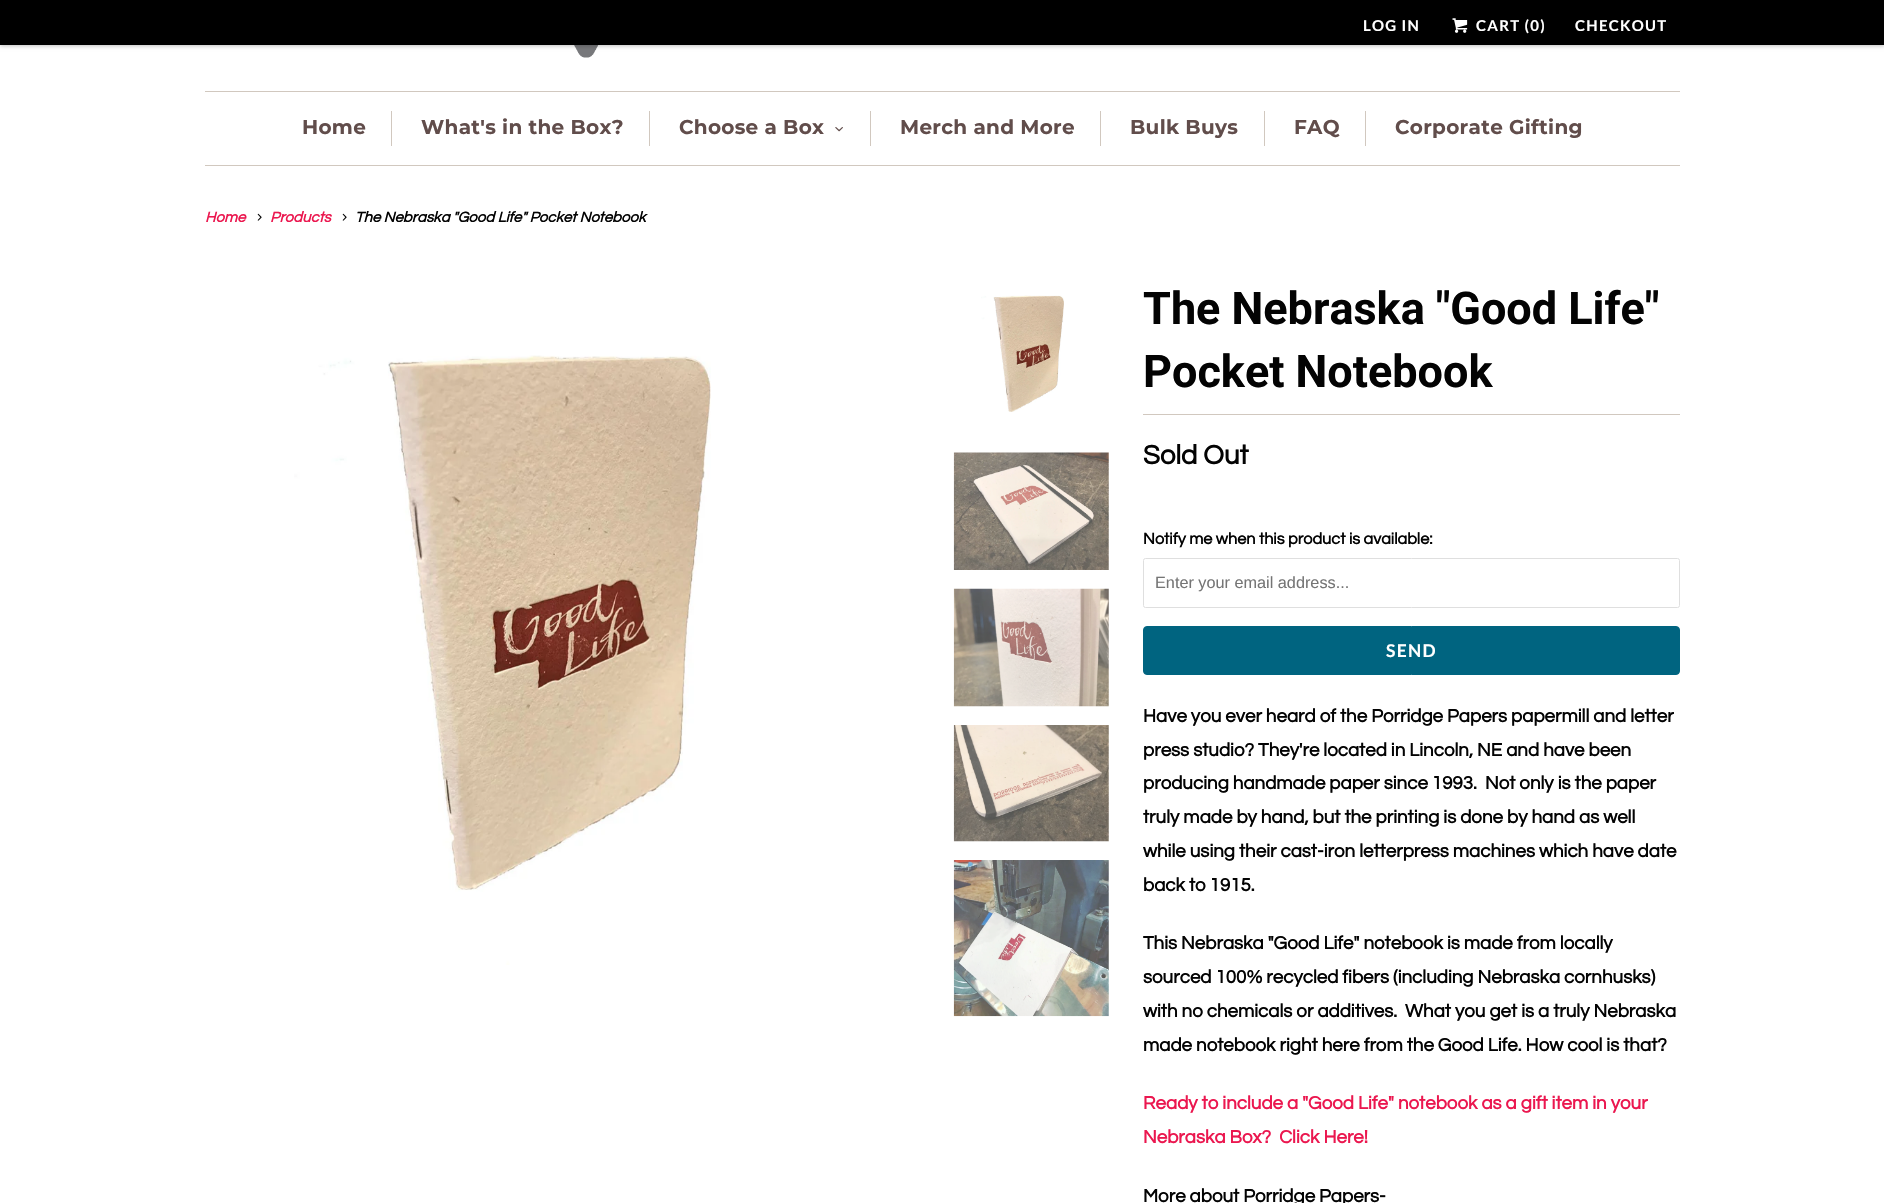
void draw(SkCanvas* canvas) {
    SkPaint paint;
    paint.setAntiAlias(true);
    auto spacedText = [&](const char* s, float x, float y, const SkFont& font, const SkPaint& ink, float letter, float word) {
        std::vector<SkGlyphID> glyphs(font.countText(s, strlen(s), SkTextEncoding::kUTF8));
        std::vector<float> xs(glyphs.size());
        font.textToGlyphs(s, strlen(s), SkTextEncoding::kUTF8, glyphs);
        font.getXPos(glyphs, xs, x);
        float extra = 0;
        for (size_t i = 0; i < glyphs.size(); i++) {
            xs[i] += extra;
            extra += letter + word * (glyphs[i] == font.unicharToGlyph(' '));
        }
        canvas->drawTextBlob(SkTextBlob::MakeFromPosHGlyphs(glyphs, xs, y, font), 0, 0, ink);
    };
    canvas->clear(0xFFFFFFFF);
    canvas->drawImageRect(SkImages::DeferredFromEncodedData(SkData::MakeFromFileName("img2.png")), SkRect::MakeXYWH(574, 45, 25, 13), SkSamplingOptions());
    paint.setColor(0x40000000);
    paint.setMaskFilter(SkMaskFilter::MakeBlur(kNormal_SkBlurStyle, 2));
    canvas->drawRect(SkRect::MakeXYWH(0, 1, 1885, 45), paint);
    paint.setMaskFilter(nullptr);
    paint.setColor(0xFF000000);
    canvas->drawRect(SkRect::MakeXYWH(0, 0, 1884, 45), paint);
    SkFont font1(fontMgr->matchFamilyStyle("Lato", SkFontStyle::Bold()), 15);
    font1.setSubpixel(true);
    paint.setColor(0xFFFFFFFF);
    spacedText("LOG IN", 1363, 31, font1, paint, 1.25f, 0);
    canvas->drawImageRect(SkImages::DeferredFromEncodedData(SkData::MakeFromFileName("img1.png")), SkRect::MakeXYWH(1452, 18, 16, 15), SkSamplingOptions());
    spacedText("CART (0)", 1476, 31, font1, paint, 1.25f, 0);
    spacedText("CHECKOUT", 1575, 31, font1, paint, 1.25f, 0);
    paint.setColor(0xFFD1C8BF);
    canvas->drawRect(SkRect::MakeXYWH(205, 91, 1475, 1), paint);
    canvas->drawRect(SkRect::MakeXYWH(205, 165, 1475, 1), paint);
    canvas->drawRect(SkRect::MakeXYWH(391, 111, 1, 35), paint);
    SkFont font2(fontMgr->matchFamilyStyle("Montserrat", SkFontStyle::Bold()), 20);
    font2.setSubpixel(true);
    paint.setColor(0xFF614D4B);
    spacedText("Home", 302, 134, font2, paint, 0.3f, 0);
    paint.setColor(0xFFD1C8BF);
    canvas->drawRect(SkRect::MakeXYWH(649, 111, 1, 35), paint);
    paint.setColor(0xFF614D4B);
    spacedText("What's in the Box?", 421, 134, font2, paint, 0.3f, 0);
    paint.setColor(0xFFD1C8BF);
    canvas->drawRect(SkRect::MakeXYWH(870, 111, 1, 35), paint);
    paint.setColor(0xFF614D4B);
    spacedText("Choose a Box", 679, 134, font2, paint, 0.3f, 0);
    canvas->drawImageRect(SkImages::DeferredFromEncodedData(SkData::MakeFromFileName("img3.png")), SkRect::MakeXYWH(835, 127, 8, 5), SkSamplingOptions());
    paint.setColor(0xFFD1C8BF);
    canvas->drawRect(SkRect::MakeXYWH(1100, 111, 1, 35), paint);
    paint.setColor(0xFF614D4B);
    spacedText("Merch and More", 900, 134, font2, paint, 0.3f, 0);
    paint.setColor(0xFFD1C8BF);
    canvas->drawRect(SkRect::MakeXYWH(1264, 111, 1, 35), paint);
    paint.setColor(0xFF614D4B);
    spacedText("Bulk Buys", 1130, 134, font2, paint, 0.3f, 0);
    paint.setColor(0xFFD1C8BF);
    canvas->drawRect(SkRect::MakeXYWH(1365, 111, 1, 35), paint);
    paint.setColor(0xFF614D4B);
    spacedText("FAQ", 1294, 134, font2, paint, 0.3f, 0);
    spacedText("Corporate Gifting", 1395, 134, font2, paint, 0.3f, 0);
    SkFont font3(fontMgr->matchFamilyStyle("Questrial", SkFontStyle::BoldItalic()), 15);
    font3.setSubpixel(true);
    paint.setColor(0xFFEB174F);
    canvas->drawString("Home", 205, 222, font3, paint);
    canvas->drawImageRect(SkImages::DeferredFromEncodedData(SkData::MakeFromFileName("img4.png")), SkRect::MakeXYWH(257, 213, 5, 8), SkSamplingOptions());
    canvas->drawString("Products", 270, 222, font3, paint);
    canvas->drawImageRect(SkImages::DeferredFromEncodedData(SkData::MakeFromFileName("img4.png")), SkRect::MakeXYWH(342, 213, 5, 8), SkSamplingOptions());
    paint.setColor(0xFF030303);
    canvas->drawString("The Nebraska \"Good Life\" Pocket Notebook", 355, 222, font3, paint);
    canvas->drawImageRect(SkImages::DeferredFromEncodedData(SkData::MakeFromFileName("img5.png")), SkRect::MakeXYWH(294, 355, 417, 610), SkSamplingOptions());
    canvas->drawImageRect(SkImages::DeferredFromEncodedData(SkData::MakeFromFileName("img6.png")), SkRect::MakeXYWH(981, 295, 83, 117), SkSamplingOptions());
    canvas->drawImageRect(SkImages::DeferredFromEncodedData(SkData::MakeFromFileName("img7.png")), SkRect::MakeXYWH(953, 452, 156, 118), SkSamplingOptions());
    canvas->drawImageRect(SkImages::DeferredFromEncodedData(SkData::MakeFromFileName("img8.png")), SkRect::MakeXYWH(953, 588, 156, 119), SkSamplingOptions());
    canvas->drawImageRect(SkImages::DeferredFromEncodedData(SkData::MakeFromFileName("img9.png")), SkRect::MakeXYWH(953, 725, 156, 117), SkSamplingOptions());
    canvas->drawImageRect(SkImages::DeferredFromEncodedData(SkData::MakeFromFileName("img10.png")), SkRect::MakeXYWH(953, 860, 156, 157), SkSamplingOptions());
    paint.setColor(0xFFD1C8BF);
    canvas->drawRect(SkRect::MakeXYWH(1143, 414, 537, 1), paint);
    SkFont font4(fontMgr->matchFamilyStyle("Roboto", SkFontStyle::Bold()), 45);
    font4.setSubpixel(true);
    paint.setColor(0xFF030303);
    canvas->drawString("The Nebraska \"Good Life\"", 1143, 324, font4, paint);
    canvas->drawString("Pocket Notebook", 1143, 387, font4, paint);
    SkFont font5(fontMgr->matchFamilyStyle("Questrial", SkFontStyle::Bold()), 27.5f);
    font5.setSubpixel(true);
    canvas->drawString("Sold Out", 1143, 464, font5, paint);
    SkFont font6(fontMgr->matchFamilyStyle("Questrial", SkFontStyle::Bold()), 16.25f);
    font6.setSubpixel(true);
    canvas->drawString("Notify me when this product is available:", 1143, 544, font6, paint);
    paint.setStyle(SkPaint::kStroke_Style);
    paint.setStrokeWidth(1);
    paint.setColor(0xFFDFDFDF);
    canvas->drawRoundRect(SkRect::MakeXYWH(1143.5f, 558.5f, 536, 49), 2, 2, paint);
    SkFont font7(fontMgr->matchFamilyStyle("Liberation Sans", SkFontStyle::Normal()), 16.25f);
    font7.setSubpixel(true);
    paint.setStyle(SkPaint::kFill_Style);
    paint.setColor(0xFF757575);
    canvas->drawString("Enter your email address...", 1155, 588, font7, paint);
    paint.setColor(0xFF006480);
    canvas->drawRoundRect(SkRect::MakeXYWH(1143.5f, 626.5f, 536, 48), 3.5f, 3.5f, paint);
    paint.setStyle(SkPaint::kStroke_Style);
    canvas->drawRoundRect(SkRect::MakeXYWH(1143.5f, 626.5f, 536, 48), 3.5f, 3.5f, paint);
    SkFont font8(fontMgr->matchFamilyStyle("Lato", SkFontStyle::Bold()), 17.5f);
    font8.setSubpixel(true);
    paint.setStyle(SkPaint::kFill_Style);
    paint.setColor(0xFFFFFFFF);
    spacedText("SEND", 1386, 657, font8, paint, 1.25f, 0);
    SkFont font9(fontMgr->matchFamilyStyle("Questrial", SkFontStyle::Bold()), 18.75f);
    font9.setSubpixel(true);
    paint.setColor(0xFF030303);
    canvas->drawString("Have you ever heard of the Porridge Papers papermill and letter", 1143, 722, font9, paint);
    canvas->drawString("press studio? They're located in Lincoln, NE and have been", 1143, 756, font9, paint);
    canvas->drawString("producing handmade paper since 1993.  Not only is the paper", 1143, 789, font9, paint);
    canvas->drawString("truly made by hand, but the printing is done by hand as well", 1143, 823, font9, paint);
    canvas->drawString("while using their cast-iron letterpress machines which have date", 1143, 857, font9, paint);
    canvas->drawString("back to 1915.", 1143, 891, font9, paint);
    canvas->drawString("This Nebraska \"Good Life\" notebook is made from locally", 1143, 949, font9, paint);
    canvas->drawString("sourced 100% recycled fibers (including Nebraska cornhusks)", 1143, 983, font9, paint);
    canvas->drawString("with no chemicals or additives.  What you get is a truly Nebraska", 1143, 1017, font9, paint);
    canvas->drawString("made notebook right here from the Good Life. How cool is that?", 1143, 1051, font9, paint);
    paint.setColor(0xFFEB174F);
    canvas->drawString("Ready to include a \"Good Life\" notebook as a gift item in your", 1143, 1109, font9, paint);
    canvas->drawString("Nebraska Box?  Click Here!", 1143, 1143, font9, paint);
    paint.setColor(0xFF030303);
    canvas->drawString("More about Porridge Papers-", 1143, 1202, font9, paint);
}
